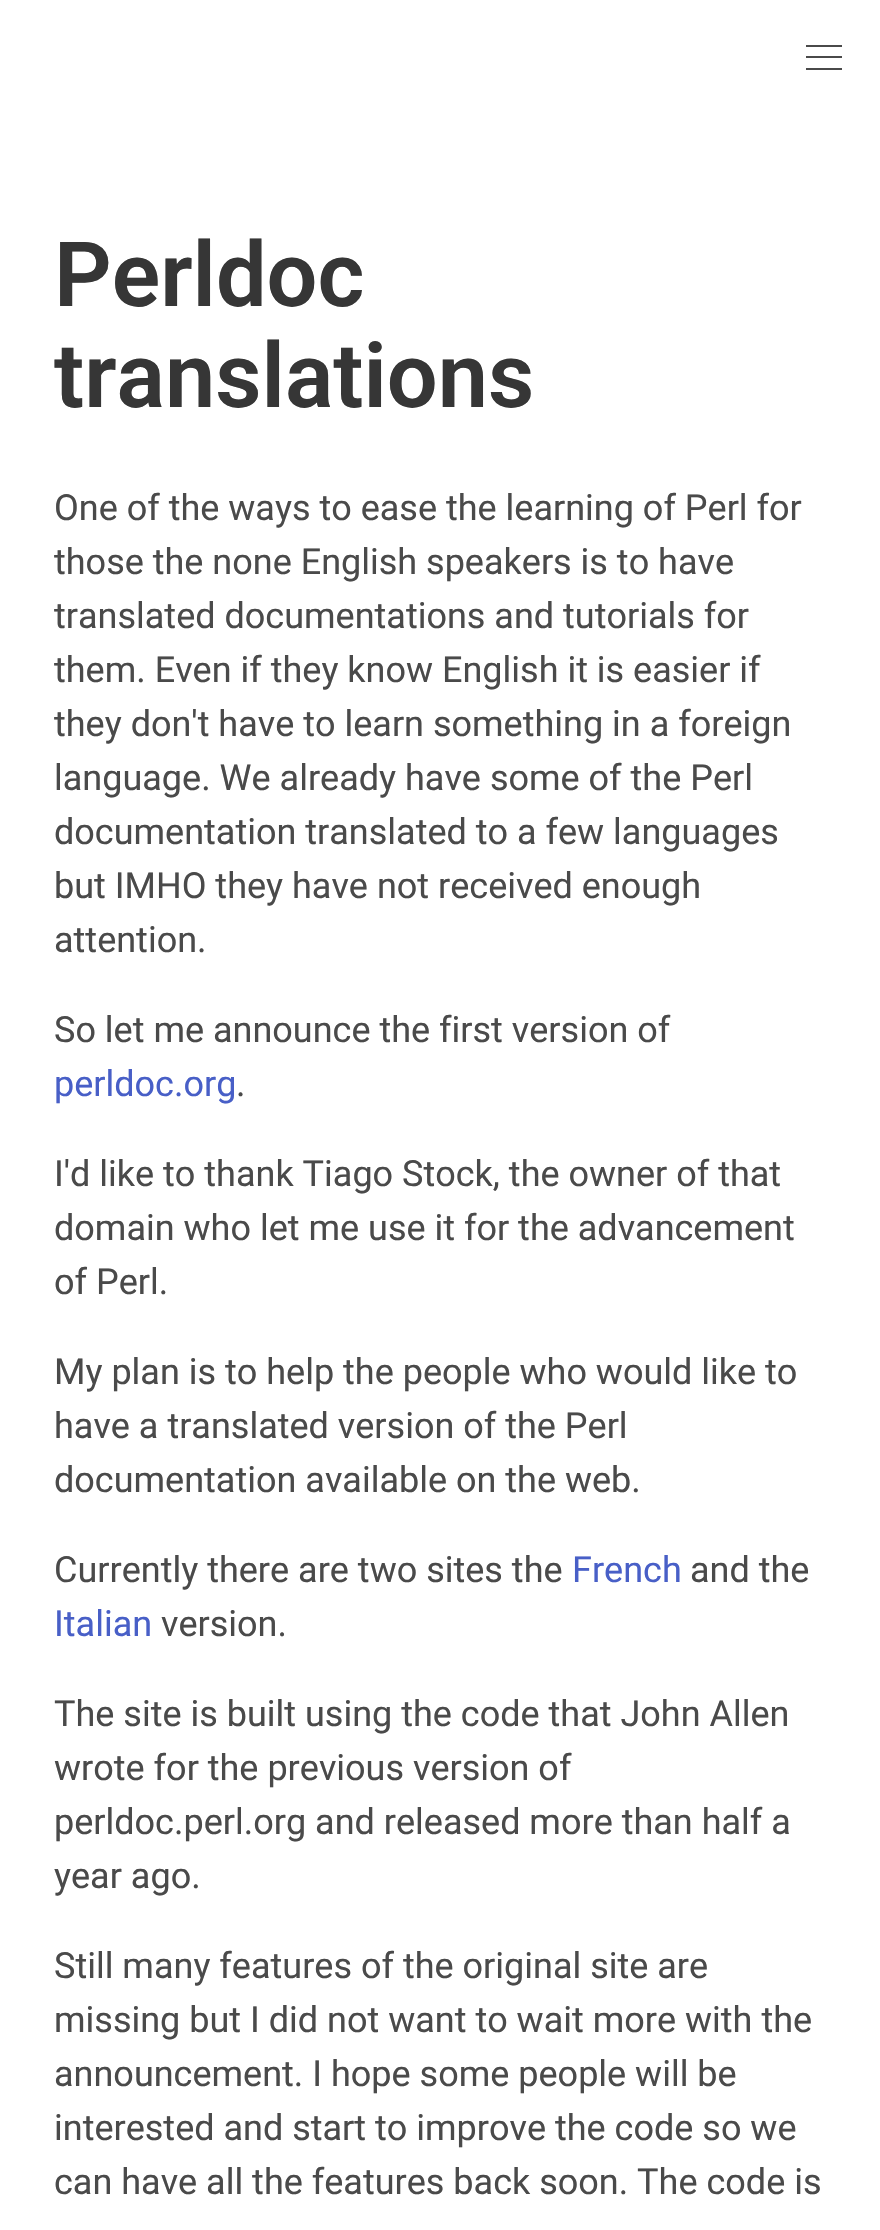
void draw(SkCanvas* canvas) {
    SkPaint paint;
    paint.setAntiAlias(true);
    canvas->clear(0xFFFFFFFF);
    paint.setColor(0xFF4A4A4A);
    canvas->drawRect(SkRect::MakeXYWH(806, 45, 36, 2), paint);
    canvas->drawRect(SkRect::MakeXYWH(806, 56, 36, 2), paint);
    canvas->drawRect(SkRect::MakeXYWH(806, 68, 36, 2), paint);
    SkFont font1(fontMgr->matchFamilyStyle("Roboto", SkFontStyle(600, SkFontStyle::kNormal_Width, SkFontStyle::kUpright_Slant)), 90);
    font1.setSubpixel(true);
    paint.setColor(0xFF363636);
    canvas->drawString("Perldoc", 54, 306, font1, paint);
    canvas->drawString("translations", 54, 407, font1, paint);
    SkFont font2(fontMgr->matchFamilyStyle("Roboto", SkFontStyle::Normal()), 36);
    font2.setSubpixel(true);
    paint.setColor(0xFF4A4A4A);
    canvas->drawString("One of the ways to ease the learning of Perl for", 54, 520, font2, paint);
    canvas->drawString("those the none English speakers is to have", 54, 574, font2, paint);
    canvas->drawString("translated documentations and tutorials for", 54, 628, font2, paint);
    canvas->drawString("them. Even if they know English it is easier if", 54, 682, font2, paint);
    canvas->drawString("they don't have to learn something in a foreign", 54, 736, font2, paint);
    canvas->drawString("language. We already have some of the Perl", 54, 790, font2, paint);
    canvas->drawString("documentation translated to a few languages", 54, 844, font2, paint);
    canvas->drawString("but IMHO they have not received enough", 54, 898, font2, paint);
    canvas->drawString("attention.", 54, 952, font2, paint);
    canvas->drawString("So let me announce the first version of", 54, 1042, font2, paint);
    paint.setColor(0xFF485FC7);
    canvas->drawString("perldoc.org", 54, 1096, font2, paint);
    paint.setColor(0xFF4A4A4A);
    canvas->drawString(".", 236, 1096, font2, paint);
    canvas->drawString("I'd like to thank Tiago Stock, the owner of that", 54, 1186, font2, paint);
    canvas->drawString("domain who let me use it for the advancement", 54, 1240, font2, paint);
    canvas->drawString("of Perl.", 54, 1294, font2, paint);
    canvas->drawString("My plan is to help the people who would like to", 54, 1384, font2, paint);
    canvas->drawString("have a translated version of the Perl", 54, 1438, font2, paint);
    canvas->drawString("documentation available on the web.", 54, 1492, font2, paint);
    canvas->drawString("Currently there are two sites the", 54, 1582, font2, paint);
    paint.setColor(0xFF485FC7);
    canvas->drawString("French", 572, 1582, font2, paint);
    paint.setColor(0xFF4A4A4A);
    canvas->drawString("and the", 690, 1582, font2, paint);
    paint.setColor(0xFF485FC7);
    canvas->drawString("Italian", 54, 1636, font2, paint);
    paint.setColor(0xFF4A4A4A);
    canvas->drawString("version.", 161, 1636, font2, paint);
    canvas->drawString("The site is built using the code that John Allen", 54, 1726, font2, paint);
    canvas->drawString("wrote for the previous version of", 54, 1780, font2, paint);
    canvas->drawString("perldoc.perl.org and released more than half a", 54, 1834, font2, paint);
    canvas->drawString("year ago.", 54, 1888, font2, paint);
    canvas->drawString("Still many features of the original site are", 54, 1978, font2, paint);
    canvas->drawString("missing but I did not want to wait more with the", 54, 2032, font2, paint);
    canvas->drawString("announcement. I hope some people will be", 54, 2086, font2, paint);
    canvas->drawString("interested and start to improve the code so we", 54, 2140, font2, paint);
    canvas->drawString("can have all the features back soon. The code is", 54, 2194, font2, paint);
}
